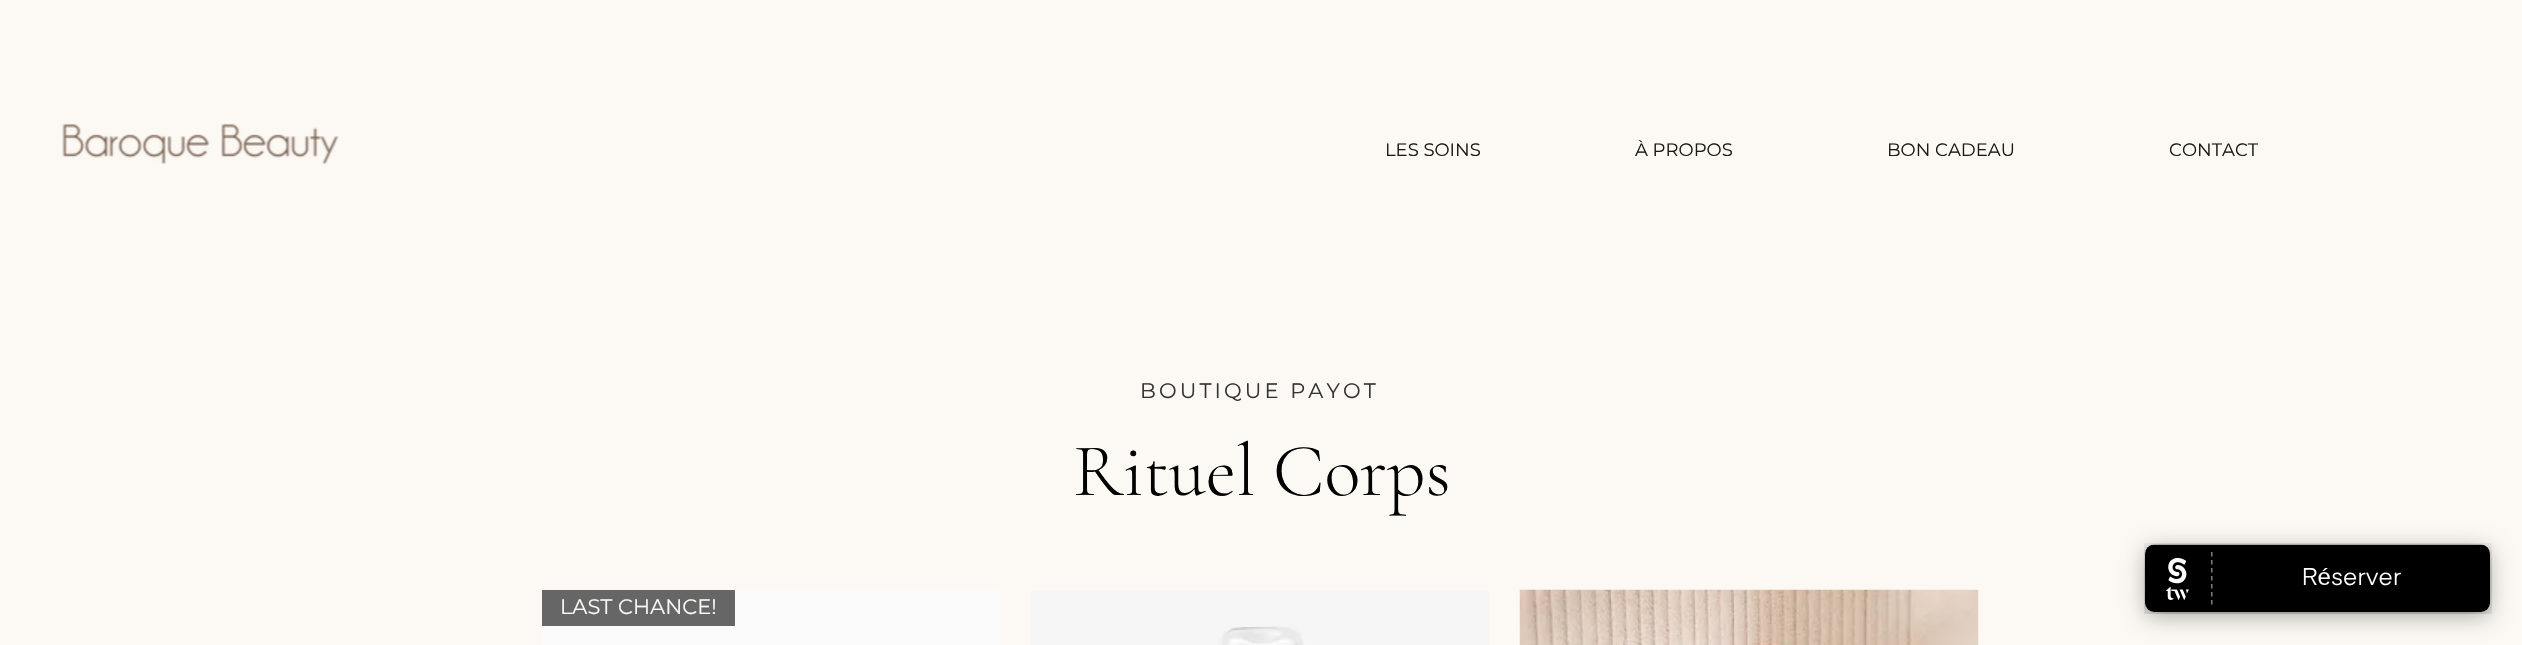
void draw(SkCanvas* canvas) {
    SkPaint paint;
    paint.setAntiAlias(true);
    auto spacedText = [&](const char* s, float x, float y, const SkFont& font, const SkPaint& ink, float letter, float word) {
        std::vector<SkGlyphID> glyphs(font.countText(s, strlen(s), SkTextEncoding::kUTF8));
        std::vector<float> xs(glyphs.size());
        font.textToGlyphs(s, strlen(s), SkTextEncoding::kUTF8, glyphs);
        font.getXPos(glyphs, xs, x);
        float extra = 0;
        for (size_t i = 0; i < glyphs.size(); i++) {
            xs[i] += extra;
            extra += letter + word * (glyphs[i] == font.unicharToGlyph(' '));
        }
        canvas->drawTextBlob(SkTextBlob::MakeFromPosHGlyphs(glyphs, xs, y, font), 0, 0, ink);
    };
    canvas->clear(0xFFFCF9F4);
    canvas->drawImageRect(SkImages::DeferredFromEncodedData(SkData::MakeFromFileName("img1.png")), SkRect::MakeXYWH(62, 123, 277, 41), SkSamplingOptions());
    SkFont font1(fontMgr->matchFamilyStyle("Montserrat", SkFontStyle::Normal()), 18);
    font1.setSubpixel(true);
    paint.setColor(0xFF1E1815);
    canvas->drawString("LES SOINS", 1385, 156, font1, paint);
    canvas->drawString("À PROPOS", 1635, 156, font1, paint);
    canvas->drawString("BON CADEAU", 1887, 156, font1, paint);
    canvas->drawString("CONTACT", 2169, 156, font1, paint);
    SkFont font2(fontMgr->matchFamilyStyle("Montserrat", SkFontStyle::Normal()), 21);
    font2.setSubpixel(true);
    paint.setColor(0xFF333333);
    spacedText("BOUTIQUE PAYOT", 1140, 398, font2, paint, 3.1f, 0);
    SkFont font3(fontMgr->matchFamilyStyle("Cormorant Garamond", SkFontStyle(300, SkFontStyle::kNormal_Width, SkFontStyle::kUpright_Slant)), 75);
    font3.setSubpixel(true);
    paint.setColor(0xFF000000);
    canvas->drawString("Rituel Corps", 1073, 495, font3, paint);
    paint.setColor(0xFFFCFBFC);
    canvas->drawRect(SkRect::MakeXYWH(542, 590, 458, 55), paint);
    paint.setColor(0xFF666666);
    canvas->drawRect(SkRect::MakeXYWH(542, 590, 193, 36), paint);
    paint.setColor(0xFFFCF9F4);
    canvas->drawString("LAST CHANCE!", 560, 614, font2, paint);
    canvas->drawImageRect(SkImages::DeferredFromEncodedData(SkData::MakeFromFileName("img2.png")), SkRect::MakeXYWH(1031, 590, 458, 55), SkSamplingOptions());
    canvas->drawImageRect(SkImages::DeferredFromEncodedData(SkData::MakeFromFileName("img3.png")), SkRect::MakeXYWH(1519, 589, 460, 56), SkSamplingOptions());
    paint.setColor(0x4D000000);
    paint.setMaskFilter(SkMaskFilter::MakeBlur(kNormal_SkBlurStyle, 11));
    canvas->drawRoundRect(SkRect::MakeXYWH(2145, 549, 345, 68), 9, 9, paint);
    paint.setMaskFilter(nullptr);
    canvas->drawImageRect(SkImages::DeferredFromEncodedData(SkData::MakeFromFileName("img4.png")), SkRect::MakeXYWH(2144, 543, 348, 71), SkSamplingOptions());
}
